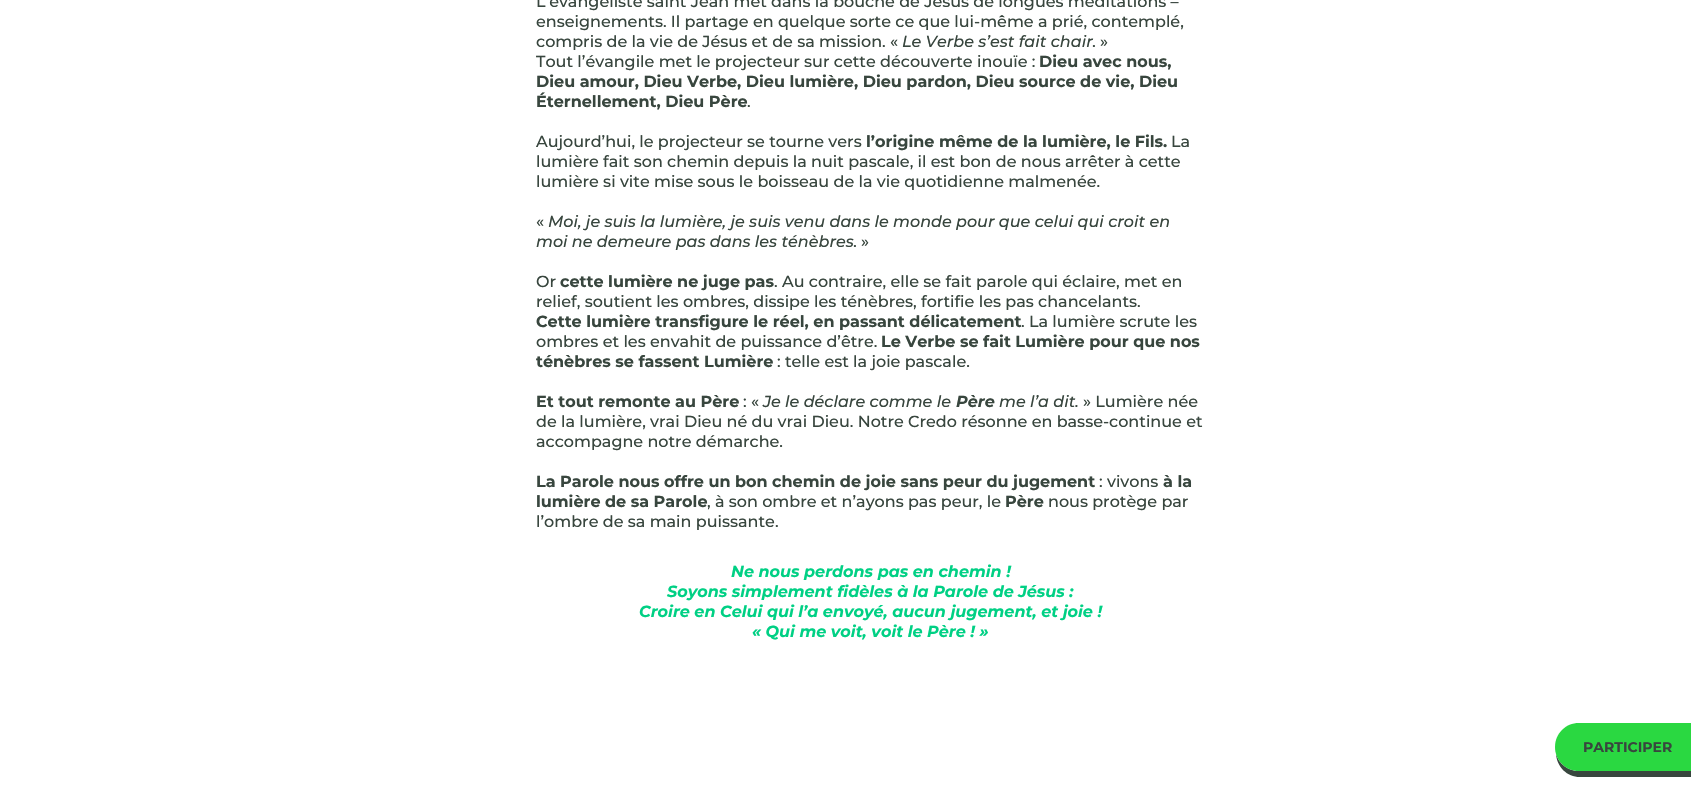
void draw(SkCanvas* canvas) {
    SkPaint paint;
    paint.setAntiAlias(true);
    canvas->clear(0xFFFFFFFF);
    SkFont font1(fontMgr->matchFamilyStyle("Montserrat", SkFontStyle(500, SkFontStyle::kNormal_Width, SkFontStyle::kUpright_Slant)), 16);
    font1.setSubpixel(true);
    paint.setColor(0xFF38463E);
    canvas->drawString("L’évangéliste saint Jean met dans la bouche de Jésus de longues méditations –", 536, 7, font1, paint);
    canvas->drawString("enseignements. Il partage en quelque sorte ce que lui-même a prié, contemplé,", 536, 27, font1, paint);
    canvas->drawString("compris de la vie de Jésus et de sa mission. «", 536, 47, font1, paint);
    SkFont font2(fontMgr->matchFamilyStyle("Montserrat", SkFontStyle(500, SkFontStyle::kNormal_Width, SkFontStyle::kItalic_Slant)), 16);
    font2.setSubpixel(true);
    canvas->drawString("Le Verbe s’est fait chair.", 902, 47, font2, paint);
    canvas->drawString("»", 1100, 47, font1, paint);
    canvas->drawString("Tout l’évangile met le projecteur sur cette découverte inouïe :", 536, 67, font1, paint);
    SkFont font3(fontMgr->matchFamilyStyle("Montserrat", SkFontStyle::Bold()), 16);
    font3.setSubpixel(true);
    canvas->drawString("Dieu avec nous,", 1039, 67, font3, paint);
    canvas->drawString("Dieu amour, Dieu Verbe, Dieu lumière, Dieu pardon, Dieu source de vie, Dieu", 536, 87, font3, paint);
    canvas->drawString("Éternellement, Dieu Père", 536, 107, font3, paint);
    canvas->drawString(".", 747, 107, font1, paint);
    canvas->drawString("Aujourd’hui, le projecteur se tourne vers", 536, 147, font1, paint);
    canvas->drawString("l’origine même de la lumière, le Fils.", 866, 147, font3, paint);
    canvas->drawString("La", 1171, 147, font1, paint);
    canvas->drawString("lumière fait son chemin depuis la nuit pascale, il est bon de nous arrêter à cette", 536, 167, font1, paint);
    canvas->drawString("lumière si vite mise sous le boisseau de la vie quotidienne malmenée.", 536, 187, font1, paint);
    canvas->drawString("«", 536, 227, font1, paint);
    canvas->drawString("Moi, je suis la lumière, je suis venu dans le monde pour que celui qui croit en", 548, 227, font2, paint);
    canvas->drawString("moi ne demeure pas dans les ténèbres.", 536, 247, font2, paint);
    canvas->drawString("»", 861, 247, font1, paint);
    canvas->drawString("Or", 536, 287, font1, paint);
    canvas->drawString("cette lumière ne juge pas", 560, 287, font3, paint);
    canvas->drawString(". Au contraire, elle se fait parole qui éclaire, met en", 774, 287, font1, paint);
    canvas->drawString("relief, soutient les ombres, dissipe les ténèbres, fortifie les pas chancelants.", 536, 307, font1, paint);
    canvas->drawString("Cette lumière transfigure le réel, en passant délicatement", 536, 327, font3, paint);
    canvas->drawString(". La lumière scrute les", 1021, 327, font1, paint);
    canvas->drawString("ombres et les envahit de puissance d’être.", 536, 347, font1, paint);
    canvas->drawString("Le Verbe se fait Lumière pour que nos", 881, 347, font3, paint);
    canvas->drawString("ténèbres se fassent Lumière", 536, 367, font3, paint);
    canvas->drawString(": telle est la joie pascale.", 777, 367, font1, paint);
    canvas->drawString("Et tout remonte au Père", 536, 407, font3, paint);
    canvas->drawString(": «", 743, 407, font1, paint);
    canvas->drawString("Je le déclare comme le", 763, 407, font2, paint);
    SkFont font4(fontMgr->matchFamilyStyle("Montserrat", SkFontStyle::BoldItalic()), 16);
    font4.setSubpixel(true);
    canvas->drawString("Père", 956, 407, font4, paint);
    canvas->drawString("me l’a dit.", 999, 407, font2, paint);
    canvas->drawString("» Lumière née", 1083, 407, font1, paint);
    canvas->drawString("de la lumière, vrai Dieu né du vrai Dieu. Notre Credo résonne en basse-continue et", 536, 427, font1, paint);
    canvas->drawString("accompagne notre démarche.", 536, 447, font1, paint);
    canvas->drawString("La Parole nous offre un bon chemin de joie sans peur du jugement", 536, 487, font3, paint);
    canvas->drawString(": vivons", 1099, 487, font1, paint);
    canvas->drawString("à la", 1163, 487, font3, paint);
    canvas->drawString("lumière de sa Parole", 536, 507, font3, paint);
    canvas->drawString(", à son ombre et n’ayons pas peur, le", 707, 507, font1, paint);
    canvas->drawString("Père", 1005, 507, font3, paint);
    canvas->drawString("nous protège par", 1048, 507, font1, paint);
    canvas->drawString("l’ombre de sa main puissante.", 536, 527, font1, paint);
    paint.setColor(0xFF00D084);
    canvas->drawString("Ne nous perdons pas en chemin !", 731, 577, font4, paint);
    canvas->drawString("Soyons simplement fidèles à la Parole de Jésus :", 667, 597, font4, paint);
    canvas->drawString("Croire en Celui qui l’a envoyé, aucun jugement, et joie !", 639, 617, font4, paint);
    canvas->drawString("« Qui me voit, voit le Père ! »", 752, 637, font4, paint);
    paint.setColor(0xFF38463E);
    canvas->drawPath(SkPathBuilder().moveTo(1556, 754).cubicTo(1557, 767, 1567, 777, 1580, 777).lineTo(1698, 777).lineTo(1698, 729).lineTo(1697, 729).lineTo(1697, 771).lineTo(1579, 771).cubicTo(1568, 771, 1559, 764, 1556, 754).close().detach(), paint);
    paint.setColor(0xFF2AD841);
    canvas->drawPath(SkPathBuilder().moveTo(1579, 723).lineTo(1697, 723).lineTo(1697, 771).lineTo(1579, 771).cubicTo(1565.5f, 771, 1555, 760.5f, 1555, 747).cubicTo(1555, 733.5f, 1565.5f, 723, 1579, 723).close().detach(), paint);
    SkFont font5(fontMgr->matchFamilyStyle("Montserrat", SkFontStyle::Bold()), 14);
    font5.setSubpixel(true);
    paint.setColor(0xFF38463E);
    canvas->drawString("PARTICIPER", 1583, 752, font5, paint);
}
